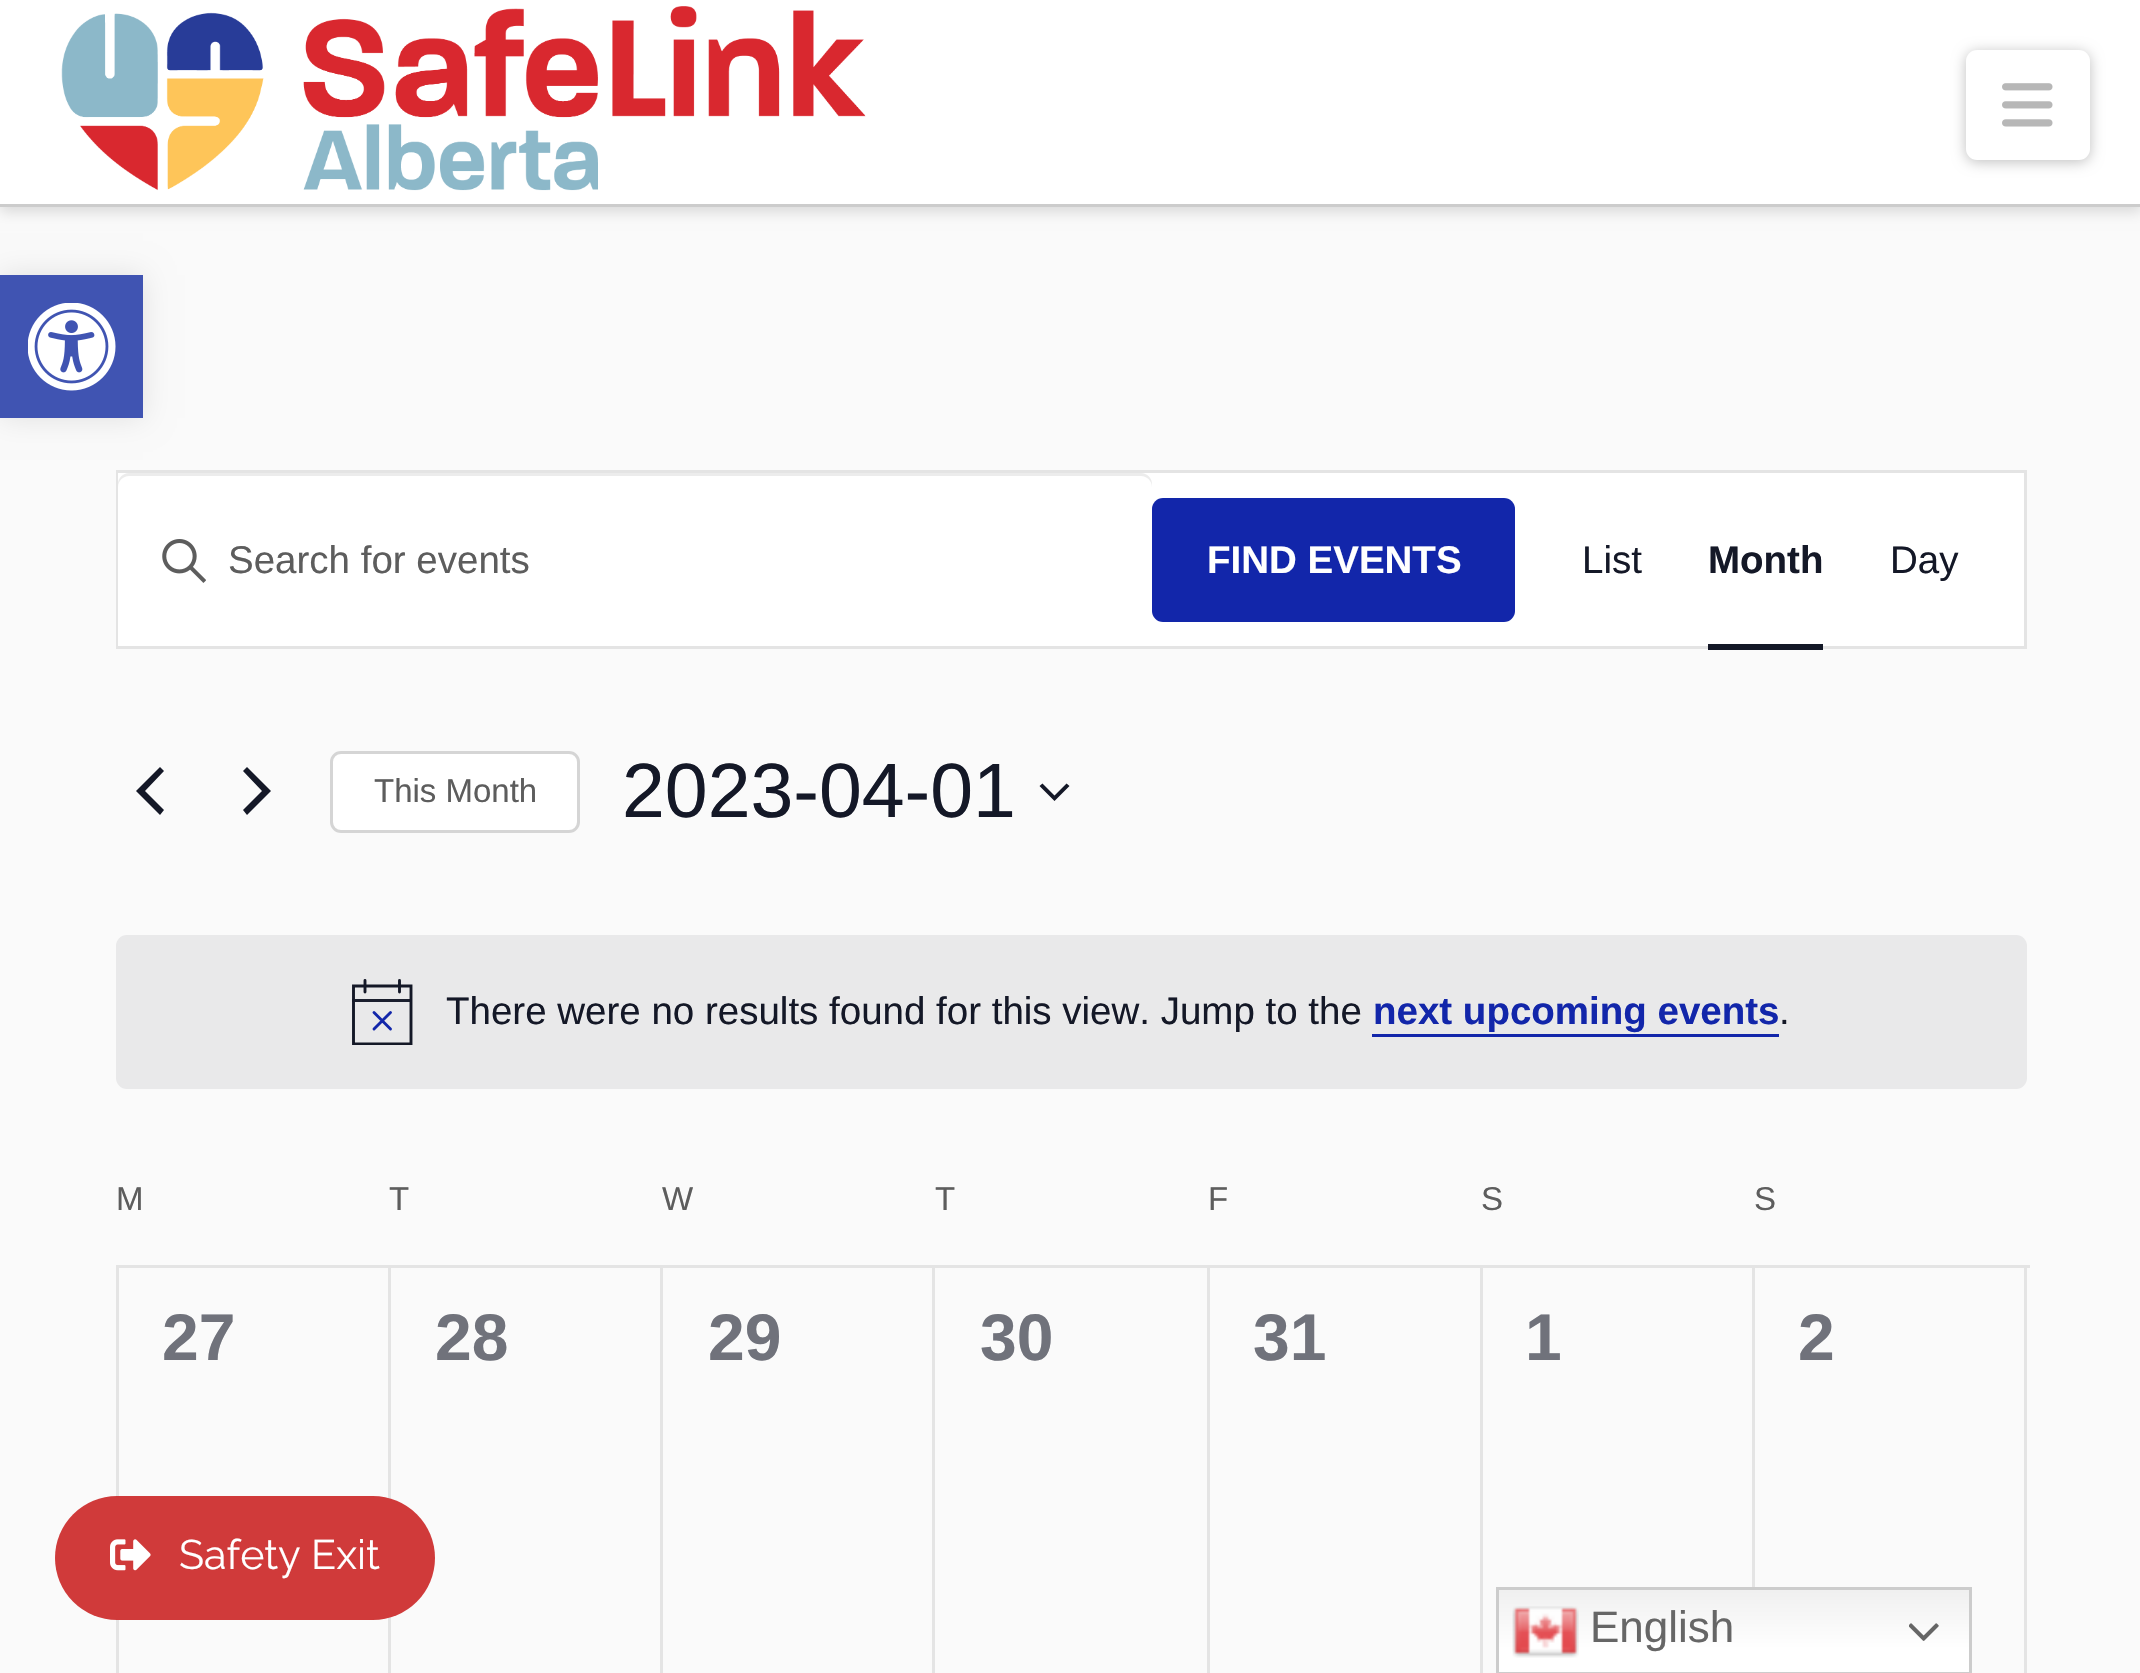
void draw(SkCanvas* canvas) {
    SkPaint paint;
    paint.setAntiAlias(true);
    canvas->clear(0xFFFAFAFA);
    paint.setColor(0x1A000000);
    paint.setMaskFilter(SkMaskFilter::MakeBlur(kNormal_SkBlurStyle, 14));
    canvas->drawRect(SkRect::MakeXYWH(0, 275, 143, 143), paint);
    paint.setMaskFilter(nullptr);
    paint.setColor(0xFF4054B2);
    canvas->drawRect(SkRect::MakeXYWH(0, 275, 143, 143), paint);
    canvas->drawImageRect(SkImages::DeferredFromEncodedData(SkData::MakeFromFileName("img1.png")), SkRect::MakeXYWH(28, 303, 88, 88), SkSamplingOptions());
    paint.setColor(0x21000000);
    paint.setMaskFilter(SkMaskFilter::MakeBlur(kNormal_SkBlurStyle, 6.5f));
    canvas->drawRect(SkRect::MakeXYWH(0, 6, 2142, 206), paint);
    paint.setMaskFilter(nullptr);
    paint.setColor(0xFFFFFFFF);
    canvas->drawRect(SkRect::MakeXYWH(0, 0, 2140, 204), paint);
    paint.setColor(0xFFCCCCCC);
    canvas->drawRect(SkRect::MakeXYWH(0, 204, 2140, 3), paint);
    canvas->drawImageRect(SkImages::DeferredFromEncodedData(SkData::MakeFromFileName("img2.png")), SkRect::MakeXYWH(61, 6, 805, 185), SkSamplingOptions());
    paint.setColor(0x40000000);
    paint.setMaskFilter(SkMaskFilter::MakeBlur(kNormal_SkBlurStyle, 7));
    canvas->drawRoundRect(SkRect::MakeXYWH(1966, 52, 124, 110), 11, 11, paint);
    paint.setMaskFilter(nullptr);
    paint.setColor(0xFFFFFFFF);
    canvas->drawRoundRect(SkRect::MakeXYWH(1966, 50, 124, 110), 11, 11, paint);
    canvas->drawImageRect(SkImages::DeferredFromEncodedData(SkData::MakeFromFileName("img3.png")), SkRect::MakeXYWH(2002, 83, 51, 44), SkSamplingOptions());
    canvas->drawRect(SkRect::MakeXYWH(1515, 473, 509, 173), paint);
    paint.setStyle(SkPaint::kStroke_Style);
    paint.setStrokeWidth(3);
    paint.setColor(0xFFE4E4E4);
    canvas->drawRect(SkRect::MakeXYWH(117.5f, 471.5f, 1908, 176), paint);
    paint.setStyle(SkPaint::kFill_Style);
    paint.setColor(0xFFFFFFFF);
    canvas->drawRect(SkRect::MakeXYWH(118, 473, 1397, 173), paint);
    canvas->drawImageRect(SkImages::DeferredFromEncodedData(SkData::MakeFromFileName("img4.png")), SkRect::MakeXYWH(162, 539, 44, 44), SkSamplingOptions());
    paint.setColor(0xFFECECEC);
    canvas->drawPath(SkPathBuilder().moveTo(129, 476).lineTo(1141, 476).cubicTo(1147, 476, 1152, 481, 1152, 487).lineTo(1152, 484).cubicTo(1152, 478, 1147, 473, 1141, 473).lineTo(129, 473).cubicTo(123, 473, 118, 478, 118, 484).lineTo(118, 487).cubicTo(118, 481, 123, 476, 129, 476).close().detach(), paint);
    SkFont font1(fontMgr->matchFamilyStyle("Liberation Sans", SkFontStyle::Normal()), 38.5f);
    font1.setSubpixel(true);
    paint.setColor(0xFF5D5D5D);
    canvas->drawString("Search for events", 228, 573, font1, paint);
    paint.setColor(0xFF1226AA);
    canvas->drawRoundRect(SkRect::MakeXYWH(1152, 498, 363, 124), 11, 11, paint);
    SkFont font2(fontMgr->matchFamilyStyle("Liberation Sans", SkFontStyle::Bold()), 38.5f);
    font2.setSubpixel(true);
    paint.setColor(0xFFFFFFFF);
    canvas->drawString("FIND EVENTS", 1207, 573, font2, paint);
    paint.setColor(0xFF141827);
    canvas->drawString("List", 1582, 573, font1, paint);
    canvas->drawString("Month", 1708, 573, font2, paint);
    canvas->drawRect(SkRect::MakeXYWH(1708, 644, 115, 6), paint);
    canvas->drawString("Day", 1890, 573, font1, paint);
    canvas->drawPath(SkPathBuilder().moveTo(164, 810).lineTo(160, 815).lineTo(136, 791).lineTo(160, 767).lineTo(164, 771).lineTo(145, 791).close().detach(), paint);
    canvas->drawPath(SkPathBuilder().moveTo(243, 771).lineTo(247, 767).lineTo(271, 791).lineTo(247, 815).lineTo(243, 810).lineTo(262, 791).close().detach(), paint);
    paint.setColor(0xFFFFFFFF);
    canvas->drawRoundRect(SkRect::MakeXYWH(331.5f, 752.5f, 247, 79), 9.5f, 9.5f, paint);
    paint.setStyle(SkPaint::kStroke_Style);
    paint.setColor(0xFFD5D5D5);
    canvas->drawRoundRect(SkRect::MakeXYWH(331.5f, 752.5f, 247, 79), 9.5f, 9.5f, paint);
    SkFont font3(fontMgr->matchFamilyStyle("Liberation Sans", SkFontStyle::Normal()), 33);
    font3.setSubpixel(true);
    paint.setStyle(SkPaint::kFill_Style);
    paint.setColor(0xFF5D5D5D);
    canvas->drawString("This Month", 374, 802, font3, paint);
    SkFont font4(fontMgr->matchFamilyStyle("Liberation Sans", SkFontStyle::Normal()), 77);
    font4.setSubpixel(true);
    paint.setColor(0xFF141827);
    canvas->drawString("2023-04-01", 622, 817, font4, paint);
    canvas->drawPath(SkPathBuilder(SkPathFillType::kEvenOdd).moveTo(1042.5f, 783.5f).lineTo(1054.5f, 795.5f).lineTo(1066.5f, 783.5f).lineTo(1069.5f, 786).lineTo(1054.5f, 801).lineTo(1039.5f, 786).close().detach(), paint);
    paint.setColor(0xFFE9E9EA);
    canvas->drawRoundRect(SkRect::MakeXYWH(116, 935, 1911, 154), 11, 11, paint);
    canvas->save();
    canvas->clipRect(SkRect::MakeXYWH(352, 979, 61, 66));
    paint.setStyle(SkPaint::kStroke_Style);
    paint.setStrokeWidth(2.9f);
    paint.setColor(0xFF141827);
    canvas->drawPath(SkPathBuilder().moveTo(353.5f, 986).lineTo(411, 986).lineTo(411, 1044).lineTo(353.5f, 1044).close().detach(), paint);
    canvas->restore();
    paint.setStrokeCap(SkPaint::kRound_Cap);
    paint.setColor(0xFF1226AA);
    canvas->drawPath(SkPathBuilder().moveTo(374, 1012.5f).lineTo(390.5f, 1029).moveTo(390.5f, 1012.5f).lineTo(374, 1029).detach(), paint);
    paint.setColor(0xFF141827);
    canvas->drawPath(SkPathBuilder().moveTo(365, 980.5f).lineTo(365, 992).moveTo(399.5f, 980.5f).lineTo(399.5f, 992).detach(), paint);
    paint.setStyle(SkPaint::kFill_Style);
    paint.setColor(0xF7141827);
    canvas->drawRect(SkRect::MakeXYWH(352, 999, 60, 3), paint);
    paint.setColor(0xFF141827);
    canvas->drawString("There were no results found for this view. Jump to the", 446, 1024, font1, paint);
    paint.setColor(0xFF1226AA);
    canvas->drawString("next upcoming events", 1373, 1024, font2, paint);
    canvas->drawRect(SkRect::MakeXYWH(1372, 1034, 407, 3), paint);
    paint.setColor(0xFF141827);
    canvas->drawString(".", 1779, 1024, font1, paint);
    paint.setColor(0xFF5D5D5D);
    canvas->drawString("M", 116, 1210, font3, paint);
    canvas->drawString("T", 389, 1210, font3, paint);
    canvas->drawString("W", 662, 1210, font3, paint);
    canvas->drawString("T", 935, 1210, font3, paint);
    canvas->drawString("F", 1208, 1210, font3, paint);
    canvas->drawString("S", 1481, 1210, font3, paint);
    canvas->drawString("S", 1754, 1210, font3, paint);
    paint.setColor(0xFFE4E4E4);
    canvas->drawRect(SkRect::MakeXYWH(116, 1265, 1914, 3), paint);
    canvas->drawRect(SkRect::MakeXYWH(116, 1268, 3, 405), paint);
    canvas->drawRect(SkRect::MakeXYWH(388, 1268, 3, 405), paint);
    SkFont font5(fontMgr->matchFamilyStyle("Liberation Sans", SkFontStyle::Bold()), 66);
    font5.setSubpixel(true);
    paint.setColor(0xFF70727B);
    canvas->drawString("27", 162, 1360, font5, paint);
    paint.setColor(0xFFE4E4E4);
    canvas->drawRect(SkRect::MakeXYWH(660, 1268, 3, 405), paint);
    paint.setColor(0xFF70727B);
    canvas->drawString("28", 435, 1360, font5, paint);
    paint.setColor(0xFFE4E4E4);
    canvas->drawRect(SkRect::MakeXYWH(932, 1268, 3, 405), paint);
    paint.setColor(0xFF70727B);
    canvas->drawString("29", 708, 1360, font5, paint);
    paint.setColor(0xFFE4E4E4);
    canvas->drawRect(SkRect::MakeXYWH(1207, 1268, 3, 405), paint);
    paint.setColor(0xFF70727B);
    canvas->drawString("30", 980, 1360, font5, paint);
    paint.setColor(0xFFE4E4E4);
    canvas->drawRect(SkRect::MakeXYWH(1480, 1268, 3, 405), paint);
    paint.setColor(0xFF70727B);
    canvas->drawString("31", 1253, 1360, font5, paint);
    paint.setColor(0xFFE4E4E4);
    canvas->drawRect(SkRect::MakeXYWH(1752, 1268, 3, 319), paint);
    paint.setColor(0xFF70727B);
    canvas->drawString("1", 1525, 1360, font5, paint);
    paint.setColor(0xFFE4E4E4);
    canvas->drawRect(SkRect::MakeXYWH(2024, 1268, 3, 405), paint);
    paint.setColor(0xFF70727B);
    canvas->drawString("2", 1798, 1360, font5, paint);
    paint.setColor(0xFFD03A3A);
    canvas->drawRoundRect(SkRect::MakeXYWH(55, 1496, 380, 124), 62, 62, paint);
    canvas->drawImageRect(SkImages::DeferredFromEncodedData(SkData::MakeFromFileName("img5.png")), SkRect::MakeXYWH(110, 1539, 41, 32), SkSamplingOptions());
    SkFont font6(fontMgr->matchFamilyStyle("Raleway", SkFontStyle::Normal()), 41.25f);
    font6.setSubpixel(true);
    paint.setColor(0xFFFFFFFF);
    canvas->drawString("Safety Exit", 179, 1569, font6, paint);
    {
        const SkColor colors[] = {0xFFEFEFEF, 0xFFFFFFFF};
        const float stops[] = {0, 0.7f};
        const SkPoint ends[] = {{1734, 1587}, {1734, 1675}};
        paint.setShader(SkGradientShader::MakeLinear(ends, colors, stops, 2, SkTileMode::kClamp));
        paint.setAlpha(255);
    }
    canvas->drawRect(SkRect::MakeXYWH(1499, 1590, 470, 82), paint);
    paint.setStyle(SkPaint::kStroke_Style);
    paint.setStrokeWidth(3);
    paint.setStrokeCap(SkPaint::kButt_Cap);
    paint.setShader(nullptr);
    paint.setColor(0xFFCCCCCC);
    canvas->drawRect(SkRect::MakeXYWH(1497.5f, 1588.5f, 473, 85), paint);
    canvas->drawImageRect(SkImages::DeferredFromEncodedData(SkData::MakeFromFileName("img6.png")), SkRect::MakeXYWH(1512, 1606, 67, 52), SkSamplingOptions());
    SkFont font7(fontMgr->matchFamilyStyle("Liberation Sans", SkFontStyle::Normal()), 44);
    font7.setSubpixel(true);
    paint.setStyle(SkPaint::kFill_Style);
    paint.setColor(0xFF666666);
    canvas->drawString("English", 1590, 1642, font7, paint);
    canvas->drawImageRect(SkImages::DeferredFromEncodedData(SkData::MakeFromFileName("img7.png")), SkRect::MakeXYWH(1909, 1623, 30, 18), SkSamplingOptions());
}
